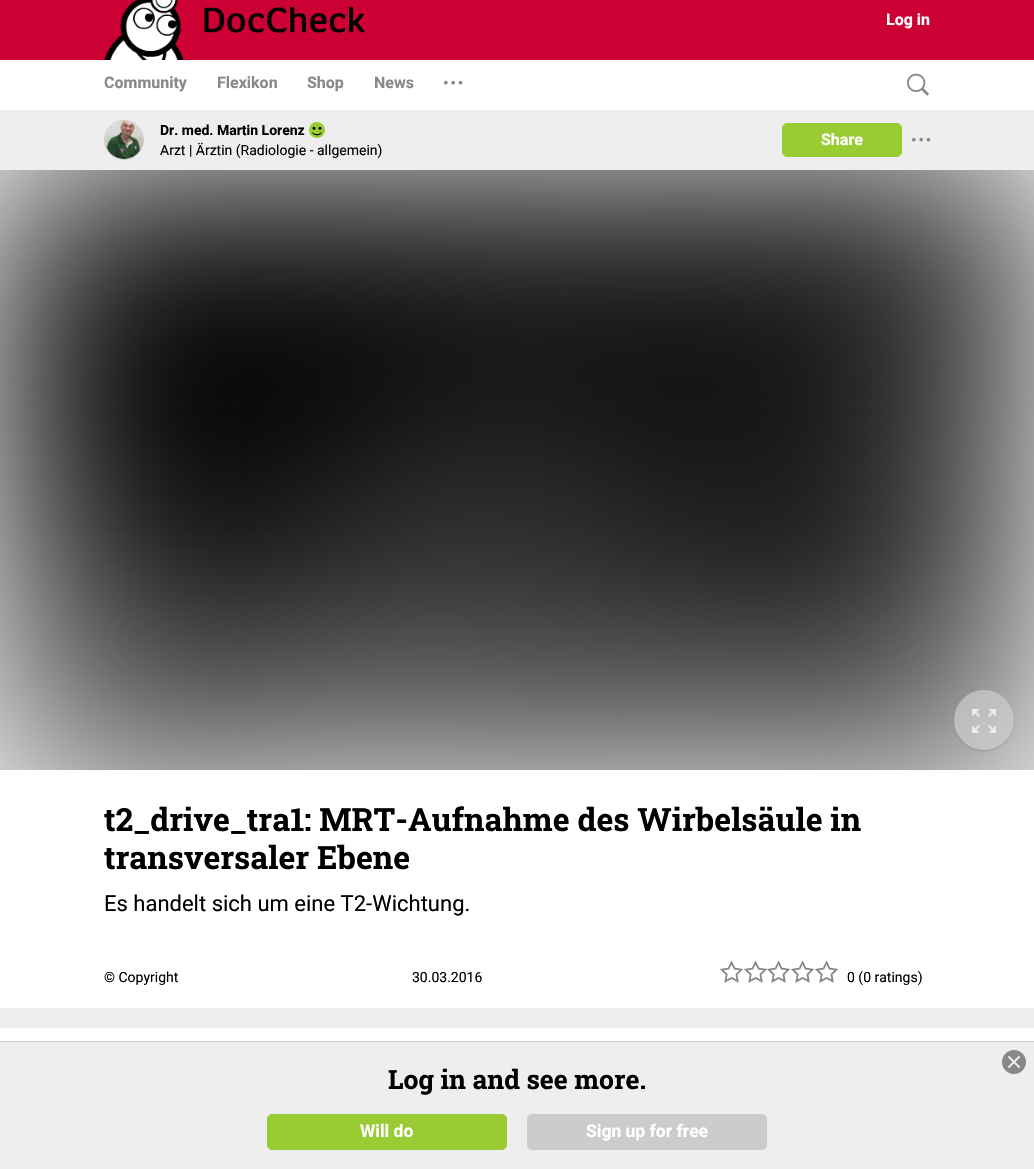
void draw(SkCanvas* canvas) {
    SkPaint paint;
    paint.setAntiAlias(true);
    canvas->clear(0xFFEEEEEE);
    paint.setColor(0xFFCC0033);
    canvas->drawRect(SkRect::MakeXYWH(0, 0, 1034, 60), paint);
    canvas->drawImageRect(SkImages::DeferredFromEncodedData(SkData::MakeFromFileName("img1.png")), SkRect::MakeXYWH(104, 0, 80, 60), SkSamplingOptions());
    canvas->drawImageRect(SkImages::DeferredFromEncodedData(SkData::MakeFromFileName("img2.png")), SkRect::MakeXYWH(204, 6, 161, 27), SkSamplingOptions());
    SkFont font1(fontMgr->matchFamilyStyle("Roboto", SkFontStyle::Bold()), 16);
    font1.setSubpixel(true);
    paint.setColor(0xFFFFFFFF);
    canvas->drawString("Log in", 886, 25, font1, paint);
    canvas->drawRect(SkRect::MakeXYWH(0, 60, 1034, 50), paint);
    paint.setColor(0xFF888888);
    canvas->drawString("Community", 104, 88, font1, paint);
    canvas->drawString("Flexikon", 217, 88, font1, paint);
    canvas->drawString("Shop", 307, 88, font1, paint);
    canvas->drawString("News", 374, 88, font1, paint);
    canvas->drawImageRect(SkImages::DeferredFromEncodedData(SkData::MakeFromFileName("img3.png")), SkRect::MakeXYWH(444, 80, 19, 5), SkSamplingOptions());
    canvas->drawImageRect(SkImages::DeferredFromEncodedData(SkData::MakeFromFileName("img4.png")), SkRect::MakeXYWH(907, 73, 22, 23), SkSamplingOptions());
    paint.setStyle(SkPaint::kStroke_Style);
    paint.setStrokeWidth(1);
    paint.setColor(0xFFCCCCCC);
    canvas->drawCircle(124, 140, 19.5f, paint);
    canvas->drawImageRect(SkImages::DeferredFromEncodedData(SkData::MakeFromFileName("img5.png")), SkRect::MakeXYWH(105, 121, 38, 38), SkSamplingOptions());
    SkFont font2(fontMgr->matchFamilyStyle("Roboto", SkFontStyle::Bold()), 14);
    font2.setSubpixel(true);
    paint.setStyle(SkPaint::kFill_Style);
    paint.setColor(0xFF000000);
    canvas->drawString("Dr. med. Martin Lorenz", 160, 135, font2, paint);
    canvas->drawImageRect(SkImages::DeferredFromEncodedData(SkData::MakeFromFileName("img6.png")), SkRect::MakeXYWH(309, 122, 16, 16), SkSamplingOptions());
    SkFont font3(fontMgr->matchFamilyStyle("Roboto", SkFontStyle::Normal()), 14);
    font3.setSubpixel(true);
    canvas->drawString("Arzt | Ärztin (Radiologie - allgemein)", 160, 155, font3, paint);
    paint.setColor(0xFF99CC33);
    canvas->drawRoundRect(SkRect::MakeXYWH(782.5f, 123.5f, 119, 33), 4.5f, 4.5f, paint);
    paint.setStyle(SkPaint::kStroke_Style);
    canvas->drawRoundRect(SkRect::MakeXYWH(782.5f, 123.5f, 119, 33), 4.5f, 4.5f, paint);
    paint.setStyle(SkPaint::kFill_Style);
    paint.setColor(0xFFFFFFFF);
    canvas->drawString("Share", 821, 145, font1, paint);
    canvas->drawImageRect(SkImages::DeferredFromEncodedData(SkData::MakeFromFileName("img7.png")), SkRect::MakeXYWH(912, 137, 19, 5), SkSamplingOptions());
    canvas->drawRect(SkRect::MakeXYWH(0, 170, 1034, 838), paint);
    canvas->drawImageRect(SkImages::DeferredFromEncodedData(SkData::MakeFromFileName("img8.png")), SkRect::MakeXYWH(0, 170, 1034, 600), SkSamplingOptions());
    canvas->save();
    canvas->clipPath(SkPathBuilder(SkPathFillType::kEvenOdd).moveTo(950, 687).lineTo(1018, 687).lineTo(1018, 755).lineTo(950, 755).close().moveTo(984, 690).cubicTo(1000.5f, 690, 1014, 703.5f, 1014, 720).cubicTo(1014, 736.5f, 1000.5f, 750, 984, 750).cubicTo(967.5f, 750, 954, 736.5f, 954, 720).cubicTo(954, 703.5f, 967.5f, 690, 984, 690).close().detach(), true);
    paint.setColor(0x2B000000);
    paint.setMaskFilter(SkMaskFilter::MakeBlur(kNormal_SkBlurStyle, 1));
    canvas->drawRoundRect(SkRect::MakeXYWH(954, 691, 60, 60), 30, 30, paint);
    paint.setMaskFilter(nullptr);
    canvas->restore();
    paint.setColor(0xB3CCCCCC);
    canvas->drawCircle(984, 720, 30, paint);
    canvas->drawImageRect(SkImages::DeferredFromEncodedData(SkData::MakeFromFileName("img9.png")), SkRect::MakeXYWH(972, 709, 24, 24), SkSamplingOptions());
    SkFont font4(fontMgr->matchFamilyStyle("Roboto Slab", SkFontStyle::Bold()), 32);
    font4.setSubpixel(true);
    paint.setColor(0xFF000000);
    canvas->drawString("t2_drive_tra1: MRT-Aufnahme des Wirbelsäule in", 104, 831, font4, paint);
    canvas->drawString("transversaler Ebene", 104, 869, font4, paint);
    SkFont font5(fontMgr->matchFamilyStyle("Roboto", SkFontStyle::Normal()), 22);
    font5.setSubpixel(true);
    canvas->drawString("Es handelt sich um eine T2-Wichtung.", 104, 911, font5, paint);
    canvas->drawString("© Copyright", 104, 982, font3, paint);
    canvas->drawString("30.03.2016", 412, 982, font3, paint);
    canvas->drawImageRect(SkImages::DeferredFromEncodedData(SkData::MakeFromFileName("img10.png")), SkRect::MakeXYWH(720, 960, 23, 23), SkSamplingOptions());
    canvas->drawImageRect(SkImages::DeferredFromEncodedData(SkData::MakeFromFileName("img10.png")), SkRect::MakeXYWH(744, 960, 23, 23), SkSamplingOptions());
    canvas->drawImageRect(SkImages::DeferredFromEncodedData(SkData::MakeFromFileName("img10.png")), SkRect::MakeXYWH(767, 960, 23, 23), SkSamplingOptions());
    canvas->drawImageRect(SkImages::DeferredFromEncodedData(SkData::MakeFromFileName("img10.png")), SkRect::MakeXYWH(791, 960, 23, 23), SkSamplingOptions());
    canvas->drawImageRect(SkImages::DeferredFromEncodedData(SkData::MakeFromFileName("img10.png")), SkRect::MakeXYWH(815, 960, 23, 23), SkSamplingOptions());
    canvas->drawString("0 (0 ratings)", 847, 982, font3, paint);
    paint.setColor(0xFFFFFFFF);
    canvas->drawRect(SkRect::MakeXYWH(0, 1028, 1034, 13), paint);
    paint.setColor(0xFFCCCCCC);
    canvas->drawRect(SkRect::MakeXYWH(0, 1041, 1034, 1), paint);
    canvas->drawImageRect(SkImages::DeferredFromEncodedData(SkData::MakeFromFileName("img11.png")), SkRect::MakeXYWH(1002, 1050, 24, 24), SkSamplingOptions());
    SkFont font6(fontMgr->matchFamilyStyle("Roboto Slab", SkFontStyle::Bold()), 26.5f);
    font6.setSubpixel(true);
    paint.setColor(0xFF000000);
    canvas->drawString("Log in and see more.", 388, 1089, font6, paint);
    paint.setColor(0xFF99CC33);
    canvas->drawRoundRect(SkRect::MakeXYWH(267.5f, 1114.5f, 239, 35), 4.5f, 4.5f, paint);
    paint.setStyle(SkPaint::kStroke_Style);
    canvas->drawRoundRect(SkRect::MakeXYWH(267.5f, 1114.5f, 239, 35), 4.5f, 4.5f, paint);
    SkFont font7(fontMgr->matchFamilyStyle("Roboto", SkFontStyle::Bold()), 17.5f);
    font7.setSubpixel(true);
    paint.setStyle(SkPaint::kFill_Style);
    paint.setColor(0xFFFFFFFF);
    canvas->drawString("Will do", 360, 1137, font7, paint);
    paint.setColor(0xFFCCCCCC);
    canvas->drawRoundRect(SkRect::MakeXYWH(527.5f, 1114.5f, 239, 35), 4.5f, 4.5f, paint);
    paint.setStyle(SkPaint::kStroke_Style);
    canvas->drawRoundRect(SkRect::MakeXYWH(527.5f, 1114.5f, 239, 35), 4.5f, 4.5f, paint);
    paint.setStyle(SkPaint::kFill_Style);
    paint.setColor(0xFFFFFFFF);
    canvas->drawString("Sign up for free", 586, 1137, font7, paint);
}
